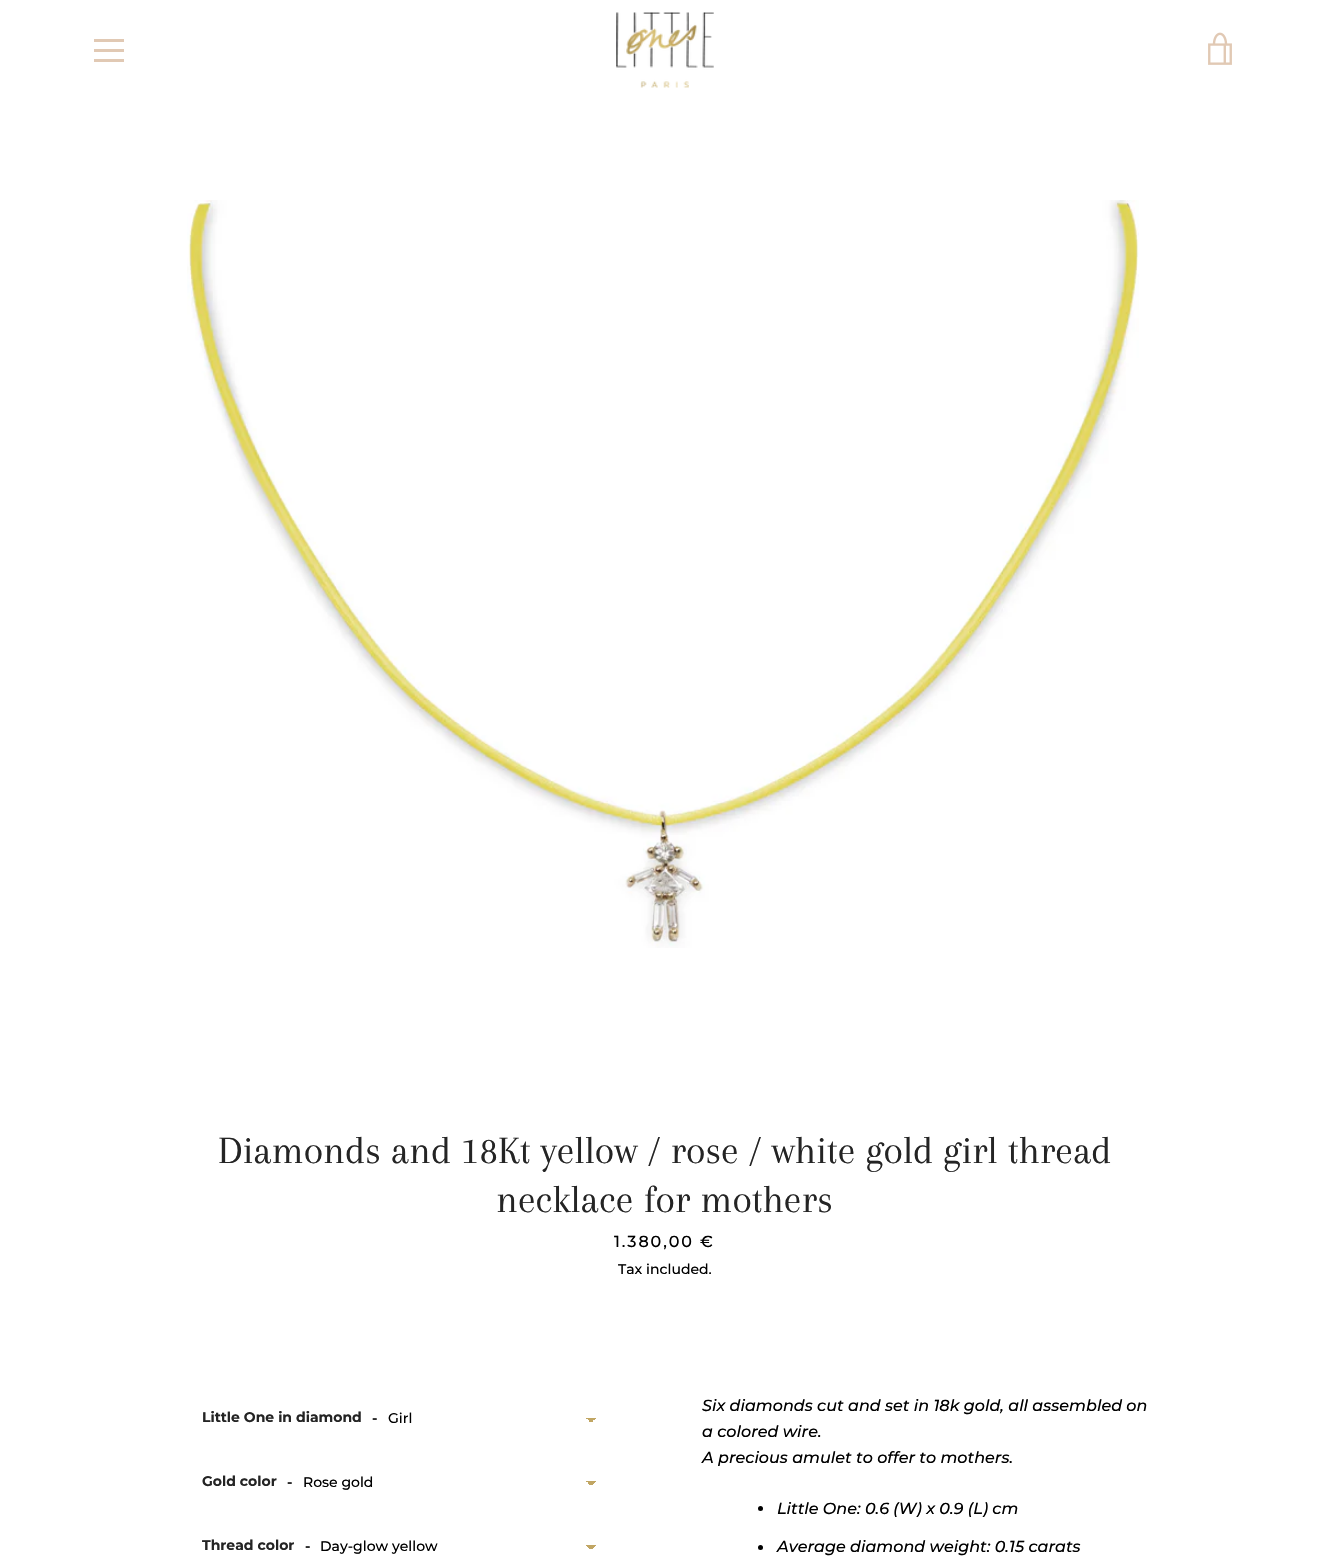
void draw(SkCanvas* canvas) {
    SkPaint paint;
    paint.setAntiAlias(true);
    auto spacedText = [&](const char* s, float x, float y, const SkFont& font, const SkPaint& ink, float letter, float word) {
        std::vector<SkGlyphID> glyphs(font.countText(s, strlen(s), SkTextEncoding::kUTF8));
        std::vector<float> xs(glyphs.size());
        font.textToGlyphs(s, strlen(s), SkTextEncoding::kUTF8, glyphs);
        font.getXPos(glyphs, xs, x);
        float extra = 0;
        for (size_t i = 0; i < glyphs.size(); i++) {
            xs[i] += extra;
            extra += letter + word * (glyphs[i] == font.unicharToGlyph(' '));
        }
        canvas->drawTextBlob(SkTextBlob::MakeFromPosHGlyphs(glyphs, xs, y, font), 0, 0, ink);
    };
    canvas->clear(0xFFFFFFFF);
    paint.setColor(0xFFE1C9B4);
    canvas->drawRect(SkRect::MakeXYWH(94, 39, 30, 3), paint);
    canvas->drawRect(SkRect::MakeXYWH(94, 49, 30, 3), paint);
    canvas->drawRect(SkRect::MakeXYWH(94, 59, 30, 3), paint);
    canvas->drawImageRect(SkImages::DeferredFromEncodedData(SkData::MakeFromFileName("img1.png")), SkRect::MakeXYWH(616, 12, 98, 76), SkSamplingOptions());
    canvas->drawImageRect(SkImages::DeferredFromEncodedData(SkData::MakeFromFileName("img2.png")), SkRect::MakeXYWH(1208, 32, 24, 33), SkSamplingOptions());
    canvas->drawImageRect(SkImages::DeferredFromEncodedData(SkData::MakeFromFileName("img3.png")), SkRect::MakeXYWH(187, 200, 952, 748), SkSamplingOptions());
    SkFont font1(fontMgr->matchFamilyStyle("Arapey", SkFontStyle::Normal()), 40);
    font1.setSubpixel(true);
    paint.setColor(0xFF242424);
    canvas->drawString("Diamonds and 18Kt yellow / rose / white gold girl thread", 218, 1163, font1, paint);
    canvas->drawString("necklace for mothers", 496, 1212, font1, paint);
    SkFont font2(fontMgr->matchFamilyStyle("Montserrat", SkFontStyle(500, SkFontStyle::kNormal_Width, SkFontStyle::kUpright_Slant)), 16);
    font2.setSubpixel(true);
    paint.setColor(0xFF000000);
    spacedText("1.380,00 €", 614, 1247, font2, paint, 1.9f, 0);
    SkFont font3(fontMgr->matchFamilyStyle("Montserrat", SkFontStyle(500, SkFontStyle::kNormal_Width, SkFontStyle::kUpright_Slant)), 14);
    font3.setSubpixel(true);
    canvas->drawString("Tax included.", 618, 1274, font3, paint);
    SkFont font4(fontMgr->matchFamilyStyle("Montserrat", SkFontStyle::Bold()), 14);
    font4.setSubpixel(true);
    paint.setColor(0xFF242424);
    canvas->drawString("Little One in diamond", 202, 1422, font4, paint);
    canvas->drawString("-", 372, 1423, font4, paint);
    {
        const SkColor colors[] = {0xFFC1A663, 0xFFFFFFFF};
        const float stops[] = {0.5f, 0.5f};
        const SkPoint ends[] = {{591, 1418}, {596, 1423}};
        paint.setShader(SkGradientShader::MakeLinear(ends, colors, stops, 2, SkTileMode::kClamp));
        paint.setAlpha(255);
    }
    canvas->drawRect(SkRect::MakeXYWH(591, 1418, 5, 4), paint);
    {
        const SkColor colors[] = {0xFFFFFFFF, 0xFFC1A663};
        const float stops[] = {0.5f, 0.5f};
        const SkPoint ends[] = {{586, 1423}, {591, 1418}};
        paint.setShader(SkGradientShader::MakeLinear(ends, colors, stops, 2, SkTileMode::kClamp));
        paint.setAlpha(255);
    }
    canvas->drawRect(SkRect::MakeXYWH(586, 1418, 5, 4), paint);
    paint.setShader(nullptr);
    paint.setColor(0xFF000000);
    canvas->drawString("Girl", 388, 1423, font3, paint);
    paint.setColor(0xFF242424);
    canvas->drawString("Gold color", 202, 1486, font4, paint);
    canvas->drawString("-", 287, 1487, font4, paint);
    {
        const SkColor colors[] = {0xFFC1A663, 0xFFFFFFFF};
        const float stops[] = {0.5f, 0.5f};
        const SkPoint ends[] = {{591, 1481}, {596, 1486}};
        paint.setShader(SkGradientShader::MakeLinear(ends, colors, stops, 2, SkTileMode::kClamp));
        paint.setAlpha(255);
    }
    canvas->drawRect(SkRect::MakeXYWH(591, 1481, 5, 4), paint);
    {
        const SkColor colors[] = {0xFFFFFFFF, 0xFFC1A663};
        const float stops[] = {0.5f, 0.5f};
        const SkPoint ends[] = {{586, 1486}, {591, 1481}};
        paint.setShader(SkGradientShader::MakeLinear(ends, colors, stops, 2, SkTileMode::kClamp));
        paint.setAlpha(255);
    }
    canvas->drawRect(SkRect::MakeXYWH(586, 1481, 5, 4), paint);
    paint.setShader(nullptr);
    paint.setColor(0xFF000000);
    canvas->drawString("Rose gold", 303, 1487, font3, paint);
    paint.setColor(0xFF242424);
    canvas->drawString("Thread color", 202, 1550, font4, paint);
    canvas->drawString("-", 305, 1551, font4, paint);
    {
        const SkColor colors[] = {0xFFC1A663, 0xFFFFFFFF};
        const float stops[] = {0.5f, 0.5f};
        const SkPoint ends[] = {{591, 1545}, {596, 1550}};
        paint.setShader(SkGradientShader::MakeLinear(ends, colors, stops, 2, SkTileMode::kClamp));
        paint.setAlpha(255);
    }
    canvas->drawRect(SkRect::MakeXYWH(591, 1545, 5, 4), paint);
    {
        const SkColor colors[] = {0xFFFFFFFF, 0xFFC1A663};
        const float stops[] = {0.5f, 0.5f};
        const SkPoint ends[] = {{586, 1550}, {591, 1545}};
        paint.setShader(SkGradientShader::MakeLinear(ends, colors, stops, 2, SkTileMode::kClamp));
        paint.setAlpha(255);
    }
    canvas->drawRect(SkRect::MakeXYWH(586, 1545, 5, 4), paint);
    paint.setShader(nullptr);
    paint.setColor(0xFF000000);
    canvas->drawString("Day-glow yellow", 320, 1551, font3, paint);
    SkFont font5(fontMgr->matchFamilyStyle("Montserrat", SkFontStyle(500, SkFontStyle::kNormal_Width, SkFontStyle::kItalic_Slant)), 16);
    font5.setSubpixel(true);
    canvas->drawString("Six diamonds cut and set in 18k gold, all assembled on", 702, 1411, font5, paint);
    canvas->drawString("a colored wire.", 702, 1437, font5, paint);
    canvas->drawString("A precious amulet to offer to mothers.", 702, 1463, font5, paint);
    canvas->drawCircle(760.5f, 1508.5f, 2.5f, paint);
    canvas->drawString("Little One: 0.6 (W) x 0.9 (L) cm", 777, 1514, font5, paint);
    canvas->drawCircle(760.5f, 1547.5f, 2.5f, paint);
    canvas->drawString("Average diamond weight: 0.15 carats", 777, 1552, font5, paint);
}
